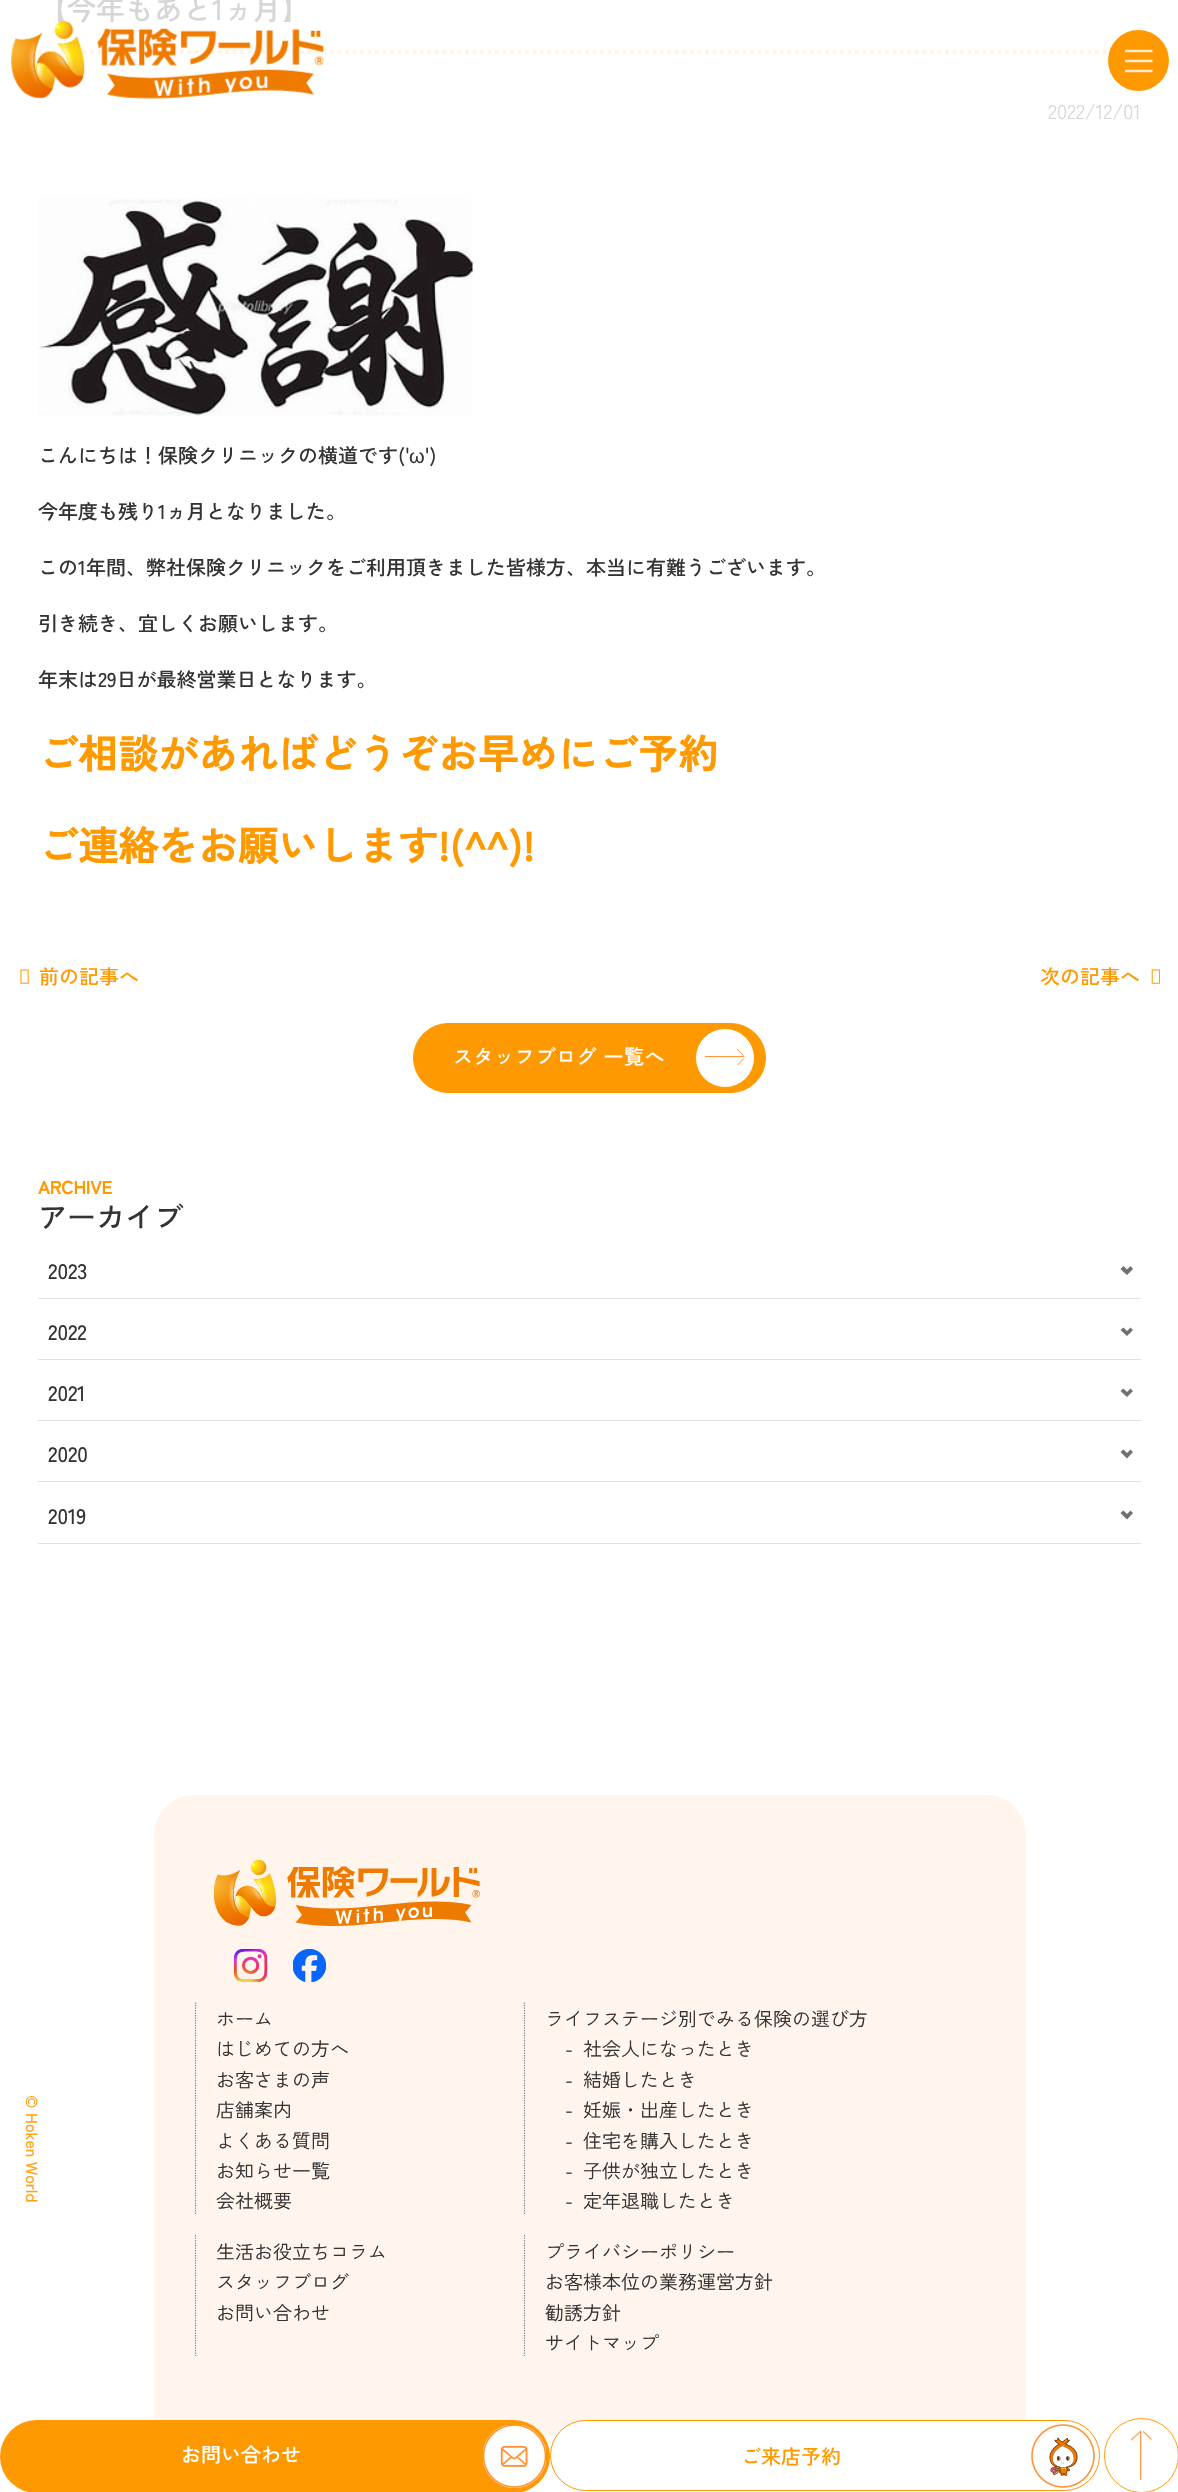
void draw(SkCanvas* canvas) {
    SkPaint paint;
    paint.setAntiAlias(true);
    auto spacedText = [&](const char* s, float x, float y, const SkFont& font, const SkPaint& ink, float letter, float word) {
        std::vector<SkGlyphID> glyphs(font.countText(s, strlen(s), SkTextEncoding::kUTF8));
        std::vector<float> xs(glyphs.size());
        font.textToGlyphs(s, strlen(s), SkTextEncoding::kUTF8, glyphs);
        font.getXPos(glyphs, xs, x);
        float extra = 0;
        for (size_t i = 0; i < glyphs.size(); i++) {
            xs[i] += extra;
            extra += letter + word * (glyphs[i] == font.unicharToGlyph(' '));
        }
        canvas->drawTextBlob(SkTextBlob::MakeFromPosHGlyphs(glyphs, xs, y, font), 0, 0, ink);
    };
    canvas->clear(0xFFFFFFFF);
    paint.setStyle(SkPaint::kStroke_Style);
    paint.setStrokeWidth(3.8f);
    paint.setColor(0xFFFFF5E6);
    paint.setPathEffect(SkDashPathEffect::Make({{3.75f, 3.75f}}, 0));
    canvas->drawPath(SkPathBuilder().moveTo(37.5f, 52).lineTo(1141, 52).detach(), paint);
    paint.setPathEffect(nullptr);
    SkFont font1(fontMgr->matchFamilyStyle("Zen Kaku Gothic New", SkFontStyle(500, SkFontStyle::kNormal_Width, SkFontStyle::kUpright_Slant)), 29);
    font1.setSubpixel(true);
    paint.setStyle(SkPaint::kFill_Style);
    paint.setColor(0xFFD6D6D6);
    canvas->drawString("【今年もあと1ヵ月】", 38, 20, font1, paint);
    SkFont font2(fontMgr->matchFamilyStyle("Zen Kaku Gothic New", SkFontStyle::Normal()), 20);
    font2.setSubpixel(true);
    canvas->drawString("2022/12/01", 1048, 119, font2, paint);
    canvas->drawImageRect(SkImages::DeferredFromEncodedData(SkData::MakeFromFileName("img1.png")), SkRect::MakeXYWH(38, 198, 435, 218), SkSamplingOptions());
    SkFont font3(fontMgr->matchFamilyStyle("Zen Kaku Gothic New", SkFontStyle(500, SkFontStyle::kNormal_Width, SkFontStyle::kUpright_Slant)), 20);
    font3.setSubpixel(true);
    paint.setColor(0xFF333333);
    canvas->drawString("こんにちは！保険クリニックの横道です('", 38, 463, font3, paint);
    SkFont font4(fontMgr->matchFamilyStyle("Liberation Sans", SkFontStyle::Normal()), 20);
    font4.setSubpixel(true);
    canvas->drawString("ω", 409, 463, font4, paint);
    canvas->drawString("')", 425, 463, font3, paint);
    canvas->drawString("今年度も残り1ヵ月となりました。", 38, 519, font3, paint);
    canvas->drawString("この1年間、弊社保険クリニックをご利用頂きました皆様方、本当に有難うございます。", 38, 575, font3, paint);
    canvas->drawString("引き続き、宜しくお願いします。", 38, 631, font3, paint);
    canvas->drawString("年末は29日が最終営業日となります。", 38, 687, font3, paint);
    SkFont font5(fontMgr->matchFamilyStyle("Zen Kaku Gothic New", SkFontStyle::Bold()), 40);
    font5.setSubpixel(true);
    paint.setColor(0xFFFF9900);
    canvas->drawString("ご相談があればどうぞお早めにご予約", 38, 769, font5, paint);
    canvas->drawString("ご連絡をお願いします!(^^)!", 38, 861, font5, paint);
    canvas->drawImageRect(SkImages::DeferredFromEncodedData(SkData::MakeFromFileName("img2.png")), SkRect::MakeXYWH(20, 969, 9, 15), SkSamplingOptions());
    canvas->drawString("前の記事へ", 39, 984, font3, paint);
    canvas->drawString("次の記事へ", 1040, 984, font3, paint);
    canvas->drawImageRect(SkImages::DeferredFromEncodedData(SkData::MakeFromFileName("img3.png")), SkRect::MakeXYWH(1151, 969, 9, 15), SkSamplingOptions());
    paint.setColor(0xFFFE9901);
    canvas->drawRoundRect(SkRect::MakeXYWH(413.5f, 1023.5f, 352, 69), 34.5f, 34.5f, paint);
    paint.setStyle(SkPaint::kStroke_Style);
    paint.setStrokeWidth(1);
    canvas->drawRoundRect(SkRect::MakeXYWH(413.5f, 1023.5f, 352, 69), 34.5f, 34.5f, paint);
    paint.setStyle(SkPaint::kFill_Style);
    paint.setColor(0xFFFFFFFF);
    spacedText("スタッフブログ 一覧へ", 453, 1064, font3, paint, 0.6f, 0);
    canvas->drawCircle(725, 1058, 29.5f, paint);
    paint.setStyle(SkPaint::kStroke_Style);
    paint.setColor(0xFFFE9901);
    canvas->drawCircle(725, 1058, 29.5f, paint);
    canvas->drawImageRect(SkImages::DeferredFromEncodedData(SkData::MakeFromFileName("img4.png")), SkRect::MakeXYWH(705, 1049, 40, 17), SkSamplingOptions());
    SkFont font6(fontMgr->matchFamilyStyle("Zen Kaku Gothic New", SkFontStyle::Bold()), 18);
    font6.setSubpixel(true);
    paint.setStyle(SkPaint::kFill_Style);
    paint.setColor(0xFFFF9900);
    canvas->drawString("ARCHIVE", 38, 1194, font6, paint);
    paint.setColor(0xFF333333);
    canvas->drawString("アーカイブ", 38, 1228, font1, paint);
    paint.setColor(0xFFE1E1E1);
    canvas->drawRect(SkRect::MakeXYWH(38, 1298, 1103, 1), paint);
    SkFont font7(fontMgr->matchFamilyStyle("Zen Kaku Gothic New", SkFontStyle(500, SkFontStyle::kNormal_Width, SkFontStyle::kUpright_Slant)), 21);
    font7.setSubpixel(true);
    paint.setColor(0xFF333333);
    canvas->drawString("2023", 48, 1279, font7, paint);
    paint.setColor(0xFF707070);
    canvas->drawPath(SkPathBuilder().moveTo(1133, 1269).lineTo(1127, 1275).lineTo(1127, 1269.5f).lineTo(1130.5f, 1266).close().moveTo(1127, 1275).lineTo(1120.5f, 1269).lineTo(1123.5f, 1266).lineTo(1127, 1269.5f).close().detach(), paint);
    paint.setColor(0xFFE1E1E1);
    canvas->drawRect(SkRect::MakeXYWH(38, 1359, 1103, 1), paint);
    paint.setColor(0xFF333333);
    canvas->drawString("2022", 48, 1340, font7, paint);
    paint.setColor(0xFF707070);
    canvas->drawPath(SkPathBuilder().moveTo(1133, 1330).lineTo(1127, 1336).lineTo(1127, 1331).lineTo(1130.5f, 1327.5f).close().moveTo(1127, 1336).lineTo(1120.5f, 1330).lineTo(1123.5f, 1327.5f).lineTo(1127, 1331).close().detach(), paint);
    paint.setColor(0xFFE1E1E1);
    canvas->drawRect(SkRect::MakeXYWH(38, 1420, 1103, 1), paint);
    paint.setColor(0xFF333333);
    canvas->drawString("2021", 48, 1401, font7, paint);
    paint.setColor(0xFF707070);
    canvas->drawPath(SkPathBuilder().moveTo(1133, 1391).lineTo(1127, 1397).lineTo(1127, 1392).lineTo(1130.5f, 1388.5f).close().moveTo(1127, 1397).lineTo(1120.5f, 1391).lineTo(1123.5f, 1388.5f).lineTo(1127, 1392).close().detach(), paint);
    paint.setColor(0xFFE1E1E1);
    canvas->drawRect(SkRect::MakeXYWH(38, 1481, 1103, 1), paint);
    paint.setColor(0xFF333333);
    canvas->drawString("2020", 48, 1462, font7, paint);
    paint.setColor(0xFF707070);
    canvas->drawPath(SkPathBuilder().moveTo(1133, 1452).lineTo(1127, 1458.5f).lineTo(1127, 1453).lineTo(1130.5f, 1449.5f).close().moveTo(1127, 1458.5f).lineTo(1120.5f, 1452).lineTo(1123.5f, 1449.5f).lineTo(1127, 1453).close().detach(), paint);
    paint.setColor(0xFFE1E1E1);
    canvas->drawRect(SkRect::MakeXYWH(38, 1543, 1103, 1), paint);
    paint.setColor(0xFF333333);
    canvas->drawString("2019", 48, 1524, font7, paint);
    paint.setColor(0xFF707070);
    canvas->drawPath(SkPathBuilder().moveTo(1133, 1513).lineTo(1127, 1519.5f).lineTo(1127, 1514).lineTo(1130.5f, 1510.5f).close().moveTo(1127, 1519.5f).lineTo(1120.5f, 1513).lineTo(1123.5f, 1510.5f).lineTo(1127, 1514).close().detach(), paint);
    canvas->drawImageRect(SkImages::DeferredFromEncodedData(SkData::MakeFromFileName("img5.png")), SkRect::MakeXYWH(11, 20, 314, 79), SkSamplingOptions());
    paint.setColor(0xFFFE9901);
    canvas->drawCircle(1138.5f, 60.5f, 30.5f, paint);
    paint.setStyle(SkPaint::kStroke_Style);
    paint.setStrokeWidth(2.5f);
    paint.setColor(0xFFFFEBCC);
    canvas->drawPath(SkPathBuilder().moveTo(1125, 51).lineTo(1152.5f, 51).moveTo(1125, 61).lineTo(1152.5f, 61).moveTo(1125, 71).lineTo(1152.5f, 71).detach(), paint);
    SkFont font8(fontMgr->matchFamilyStyle("Zen Kaku Gothic New", SkFontStyle(500, SkFontStyle::kNormal_Width, SkFontStyle::kUpright_Slant)), 16);
    font8.setSubpixel(true);
    paint.setStyle(SkPaint::kFill_Style);
    paint.setColor(0xFFFEA31A);
    canvas->save();
    canvas->rotate(90, 26, 2095);
    canvas->drawString("© Hoken World", 26, 2095, font8, paint);
    canvas->restore();
    paint.setColor(0xFFFFF5ED);
    canvas->drawPath(SkPathBuilder().moveTo(194, 1795).lineTo(986, 1795).cubicTo(1008, 1795, 1026, 1813, 1026, 1835).lineTo(1026, 2436).lineTo(154, 2436).lineTo(154, 1835).cubicTo(154, 1813, 172, 1795, 194, 1795).close().detach(), paint);
    canvas->drawImageRect(SkImages::DeferredFromEncodedData(SkData::MakeFromFileName("img6.png")), SkRect::MakeXYWH(214, 1860, 266, 66), SkSamplingOptions());
    canvas->drawImageRect(SkImages::DeferredFromEncodedData(SkData::MakeFromFileName("img7.png")), SkRect::MakeXYWH(234, 1949, 34, 33), SkSamplingOptions());
    canvas->drawImageRect(SkImages::DeferredFromEncodedData(SkData::MakeFromFileName("img8.png")), SkRect::MakeXYWH(293, 1949, 33, 33), SkSamplingOptions());
    paint.setStyle(SkPaint::kStroke_Style);
    paint.setStrokeWidth(1.2f);
    paint.setColor(0xFF808080);
    paint.setPathEffect(SkDashPathEffect::Make({{1.25f, 1.25f}}, 0));
    canvas->drawPath(SkPathBuilder().moveTo(195.5f, 2002.5f).lineTo(195.5f, 2215).detach(), paint);
    paint.setPathEffect(nullptr);
    SkFont font9(fontMgr->matchFamilyStyle("Zen Kaku Gothic New", SkFontStyle::Normal()), 19);
    font9.setSubpixel(true);
    paint.setStyle(SkPaint::kFill_Style);
    paint.setColor(0xFF333333);
    canvas->drawString("ホーム", 216, 2026, font9, paint);
    canvas->drawString("はじめての方へ", 216, 2056, font9, paint);
    canvas->drawString("お客さまの声", 216, 2087, font9, paint);
    canvas->drawString("店舗案内", 216, 2117, font9, paint);
    canvas->drawString("よくある質問", 216, 2148, font9, paint);
    canvas->drawString("お知らせ一覧", 216, 2178, font9, paint);
    canvas->drawString("会社概要", 216, 2208, font9, paint);
    paint.setStyle(SkPaint::kStroke_Style);
    paint.setColor(0xFF808080);
    paint.setPathEffect(SkDashPathEffect::Make({{1.25f, 1.25f}}, 0));
    canvas->drawPath(SkPathBuilder().moveTo(524.5f, 2002.5f).lineTo(524.5f, 2215).detach(), paint);
    paint.setPathEffect(nullptr);
    paint.setStyle(SkPaint::kFill_Style);
    paint.setColor(0xFF333333);
    canvas->drawString("ライフステージ別でみる保険の選び方", 545, 2026, font9, paint);
    canvas->drawString("-", 565, 2056, font9, paint);
    canvas->drawString("社会人になったとき", 583, 2056, font9, paint);
    canvas->drawString("-", 565, 2087, font9, paint);
    canvas->drawString("結婚したとき", 583, 2087, font9, paint);
    canvas->drawString("-", 565, 2117, font9, paint);
    canvas->drawString("妊娠・出産したとき", 583, 2117, font9, paint);
    canvas->drawString("-", 565, 2148, font9, paint);
    canvas->drawString("住宅を購入したとき", 583, 2148, font9, paint);
    canvas->drawString("-", 565, 2178, font9, paint);
    canvas->drawString("子供が独立したとき", 583, 2178, font9, paint);
    canvas->drawString("-", 565, 2208, font9, paint);
    canvas->drawString("定年退職したとき", 583, 2208, font9, paint);
    paint.setStyle(SkPaint::kStroke_Style);
    paint.setColor(0xFF808080);
    paint.setPathEffect(SkDashPathEffect::Make({{1.25f, 1.25f}}, 0));
    canvas->drawPath(SkPathBuilder().moveTo(195.5f, 2235).lineTo(195.5f, 2356).detach(), paint);
    paint.setPathEffect(nullptr);
    paint.setStyle(SkPaint::kFill_Style);
    paint.setColor(0xFF333333);
    canvas->drawString("生活お役立ちコラム", 216, 2259, font9, paint);
    canvas->drawString("スタッフブログ", 216, 2289, font9, paint);
    canvas->drawString("お問い合わせ", 216, 2320, font9, paint);
    paint.setStyle(SkPaint::kStroke_Style);
    paint.setColor(0xFF808080);
    paint.setPathEffect(SkDashPathEffect::Make({{1.25f, 1.25f}}, 0));
    canvas->drawPath(SkPathBuilder().moveTo(524.5f, 2235).lineTo(524.5f, 2356).detach(), paint);
    paint.setPathEffect(nullptr);
    paint.setStyle(SkPaint::kFill_Style);
    paint.setColor(0xFF333333);
    canvas->drawString("プライバシーポリシー", 545, 2259, font9, paint);
    canvas->drawString("お客様本位の業務運営方針", 545, 2289, font9, paint);
    canvas->drawString("勧誘方針", 545, 2320, font9, paint);
    canvas->drawString("サイトマップ", 545, 2350, font9, paint);
    paint.setColor(0xFFFE9901);
    canvas->drawRoundRect(SkRect::MakeXYWH(0, 2420, 550, 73), 36.5f, 36.5f, paint);
    paint.setColor(0xFFFFFFFF);
    canvas->drawString("お問い合わせ", 181, 2462, font3, paint);
    canvas->drawImageRect(SkImages::DeferredFromEncodedData(SkData::MakeFromFileName("img9.png")), SkRect::MakeXYWH(483, 2425, 63, 63), SkSamplingOptions());
    canvas->drawRoundRect(SkRect::MakeXYWH(550.5f, 2420.5f, 549, 70), 35, 35, paint);
    paint.setStyle(SkPaint::kStroke_Style);
    paint.setStrokeWidth(1);
    paint.setColor(0xFFFE9901);
    canvas->drawRoundRect(SkRect::MakeXYWH(550.5f, 2420.5f, 549, 70), 35, 35, paint);
    paint.setStyle(SkPaint::kFill_Style);
    paint.setColor(0xFFFF9900);
    canvas->drawString("ご来店予約", 741, 2464, font3, paint);
    canvas->drawImageRect(SkImages::DeferredFromEncodedData(SkData::MakeFromFileName("img10.png")), SkRect::MakeXYWH(1031, 2424, 64, 64), SkSamplingOptions());
    paint.setStyle(SkPaint::kStroke_Style);
    paint.setColor(0xFFFE9C09);
    canvas->drawCircle(1141.5f, 2455.5f, 37, paint);
    canvas->drawImageRect(SkImages::DeferredFromEncodedData(SkData::MakeFromFileName("img11.png")), SkRect::MakeXYWH(1131, 2429, 21, 51), SkSamplingOptions());
}
